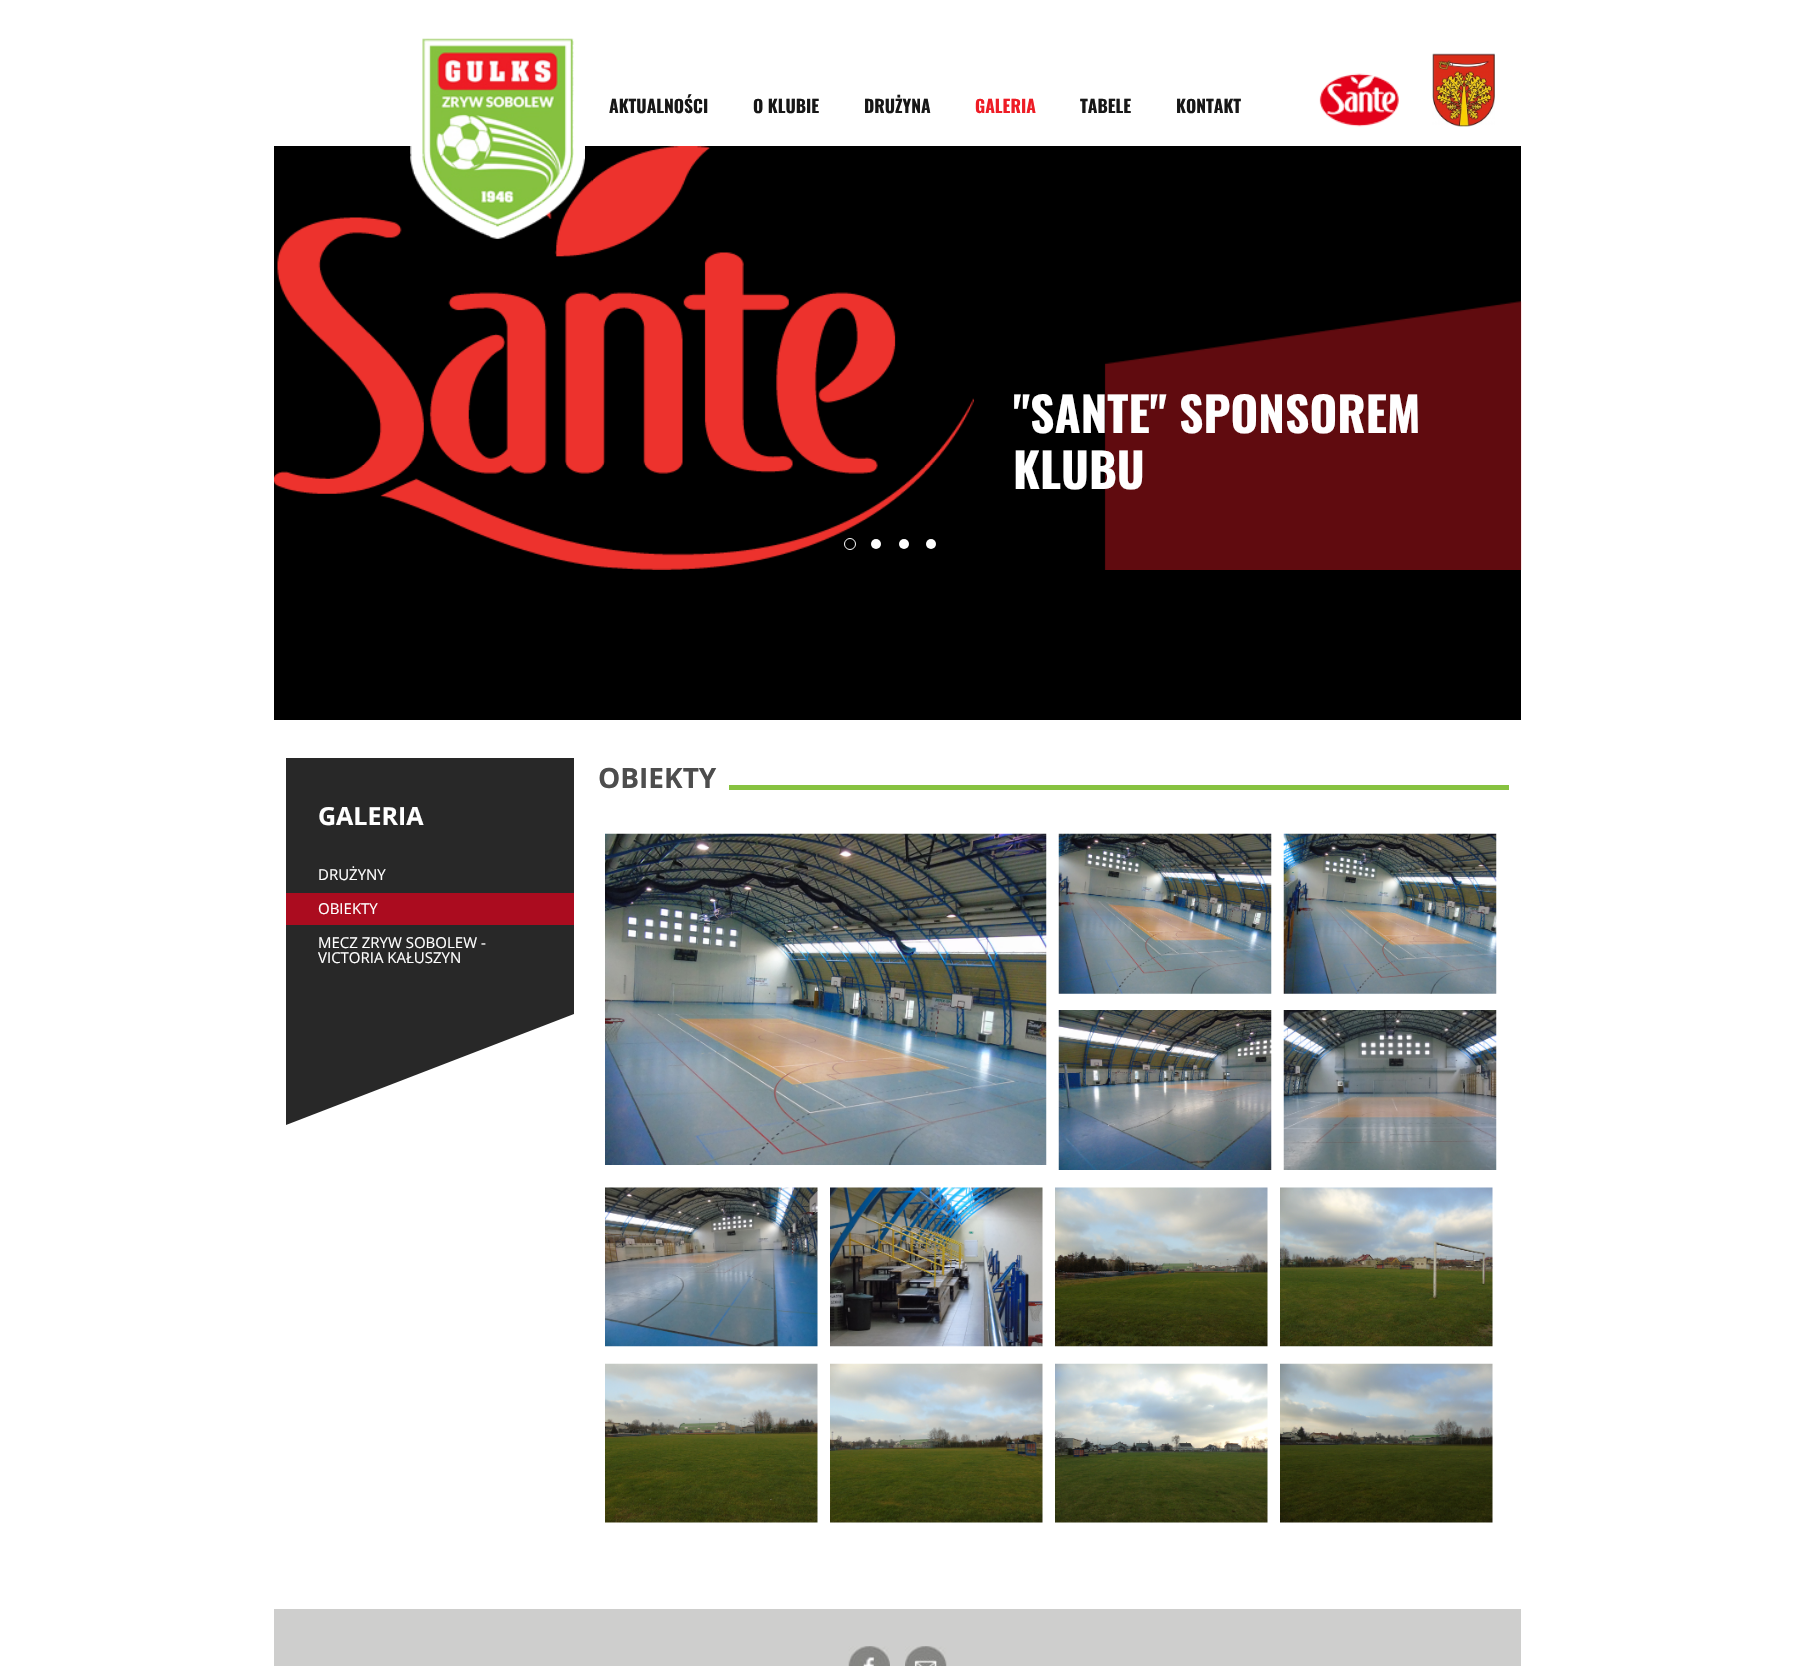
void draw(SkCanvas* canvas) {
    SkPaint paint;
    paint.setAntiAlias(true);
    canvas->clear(0xFFFFFFFF);
    paint.setColor(0xFF000000);
    canvas->drawRect(SkRect::MakeXYWH(274, 146, 1247, 574), paint);
    canvas->drawImageRect(SkImages::DeferredFromEncodedData(SkData::MakeFromFileName("img4.png")), SkRect::MakeXYWH(274, 146, 700, 424), SkSamplingOptions());
    canvas->drawImageRect(SkImages::DeferredFromEncodedData(SkData::MakeFromFileName("img1.png")), SkRect::MakeXYWH(410, 38, 175, 201), SkSamplingOptions());
    SkFont font1(fontMgr->matchFamilyStyle("Oswald", SkFontStyle::Bold()), 17.5f);
    font1.setSubpixel(true);
    paint.setColor(0xFF171717);
    canvas->drawString("AKTUALNOŚCI", 609, 113, font1, paint);
    canvas->drawString("O KLUBIE", 753, 113, font1, paint);
    canvas->drawString("DRUŻYNA", 864, 113, font1, paint);
    paint.setColor(0xFFEE1C25);
    canvas->drawString("GALERIA", 975, 113, font1, paint);
    paint.setColor(0xFF171717);
    canvas->drawString("TABELE", 1080, 113, font1, paint);
    canvas->drawString("KONTAKT", 1176, 113, font1, paint);
    canvas->drawImageRect(SkImages::DeferredFromEncodedData(SkData::MakeFromFileName("img2.png")), SkRect::MakeXYWH(1319, 73, 80, 54), SkSamplingOptions());
    canvas->drawImageRect(SkImages::DeferredFromEncodedData(SkData::MakeFromFileName("img3.png")), SkRect::MakeXYWH(1432, 53, 63, 74), SkSamplingOptions());
    canvas->drawImageRect(SkImages::DeferredFromEncodedData(SkData::MakeFromFileName("img5.png")), SkRect::MakeXYWH(1104, 301, 418, 269), SkSamplingOptions());
    SkFont font2(fontMgr->matchFamilyStyle("Oswald", SkFontStyle::Bold()), 47.5f);
    font2.setSubpixel(true);
    paint.setColor(0xFFFFFFFF);
    canvas->drawString("\"SANTE\" SPONSOREM", 1013, 433, font2, paint);
    canvas->drawString("KLUBU", 1013, 489, font2, paint);
    paint.setStyle(SkPaint::kStroke_Style);
    paint.setStrokeWidth(1);
    canvas->drawCircle(850, 544, 5.5f, paint);
    paint.setStyle(SkPaint::kFill_Style);
    canvas->drawCircle(876, 544, 5, paint);
    canvas->drawCircle(904, 544, 5, paint);
    canvas->drawCircle(931, 544, 5, paint);
    paint.setColor(0xFF87C240);
    canvas->drawRect(SkRect::MakeXYWH(729, 785, 780, 5), paint);
    SkFont font3(fontMgr->matchFamilyStyle("Open Sans", SkFontStyle::Bold()), 28);
    font3.setSubpixel(true);
    paint.setColor(0xFF4D4D4D);
    canvas->drawString("OBIEKTY", 598, 788, font3, paint);
    canvas->drawImageRect(SkImages::DeferredFromEncodedData(SkData::MakeFromFileName("img6.png")), SkRect::MakeXYWH(605, 833, 442, 332), SkSamplingOptions());
    canvas->drawImageRect(SkImages::DeferredFromEncodedData(SkData::MakeFromFileName("img7.png")), SkRect::MakeXYWH(1058, 833, 214, 161), SkSamplingOptions());
    canvas->drawImageRect(SkImages::DeferredFromEncodedData(SkData::MakeFromFileName("img8.png")), SkRect::MakeXYWH(1283, 833, 214, 161), SkSamplingOptions());
    canvas->drawImageRect(SkImages::DeferredFromEncodedData(SkData::MakeFromFileName("img9.png")), SkRect::MakeXYWH(1058, 1010, 214, 160), SkSamplingOptions());
    canvas->drawImageRect(SkImages::DeferredFromEncodedData(SkData::MakeFromFileName("img10.png")), SkRect::MakeXYWH(1283, 1010, 214, 160), SkSamplingOptions());
    canvas->drawImageRect(SkImages::DeferredFromEncodedData(SkData::MakeFromFileName("img11.png")), SkRect::MakeXYWH(605, 1187, 213, 160), SkSamplingOptions());
    canvas->drawImageRect(SkImages::DeferredFromEncodedData(SkData::MakeFromFileName("img12.png")), SkRect::MakeXYWH(830, 1187, 213, 160), SkSamplingOptions());
    canvas->drawImageRect(SkImages::DeferredFromEncodedData(SkData::MakeFromFileName("img13.png")), SkRect::MakeXYWH(1055, 1187, 213, 160), SkSamplingOptions());
    canvas->drawImageRect(SkImages::DeferredFromEncodedData(SkData::MakeFromFileName("img14.png")), SkRect::MakeXYWH(1280, 1187, 213, 160), SkSamplingOptions());
    canvas->drawImageRect(SkImages::DeferredFromEncodedData(SkData::MakeFromFileName("img15.png")), SkRect::MakeXYWH(605, 1363, 213, 160), SkSamplingOptions());
    canvas->drawImageRect(SkImages::DeferredFromEncodedData(SkData::MakeFromFileName("img16.png")), SkRect::MakeXYWH(830, 1363, 213, 160), SkSamplingOptions());
    canvas->drawImageRect(SkImages::DeferredFromEncodedData(SkData::MakeFromFileName("img17.png")), SkRect::MakeXYWH(1055, 1363, 213, 160), SkSamplingOptions());
    canvas->drawImageRect(SkImages::DeferredFromEncodedData(SkData::MakeFromFileName("img18.png")), SkRect::MakeXYWH(1280, 1363, 213, 160), SkSamplingOptions());
    paint.setColor(0xFF282828);
    canvas->drawRect(SkRect::MakeXYWH(286, 758, 288, 255), paint);
    SkFont font4(fontMgr->matchFamilyStyle("Open Sans", SkFontStyle::Bold()), 25);
    font4.setSubpixel(true);
    paint.setColor(0xFFFFFFFF);
    canvas->drawString("GALERIA", 318, 825, font4, paint);
    SkFont font5(fontMgr->matchFamilyStyle("Open Sans", SkFontStyle::Normal()), 15);
    font5.setSubpixel(true);
    canvas->drawString("DRUŻYNY", 318, 880, font5, paint);
    paint.setColor(0xFFAB0C1F);
    canvas->drawRect(SkRect::MakeXYWH(286, 893, 288, 32), paint);
    paint.setColor(0xFFFFFFFF);
    canvas->drawString("OBIEKTY", 318, 914, font5, paint);
    canvas->drawString("MECZ ZRYW SOBOLEW -", 318, 948, font5, paint);
    canvas->drawString("VICTORIA KAŁUSZYN", 318, 963, font5, paint);
    canvas->save();
    canvas->clipRect(SkRect::MakeXYWH(286, 1013, 288, 142));
    paint.setColor(0xFF282828);
    canvas->drawPath(SkPathBuilder().moveTo(79, 599).lineTo(464, 451).lineTo(667, 978).lineTo(281, 1127).close().detach(), paint);
    canvas->restore();
    paint.setColor(0xFFCECECD);
    canvas->drawRect(SkRect::MakeXYWH(274, 1609, 1247, 57), paint);
    canvas->drawImageRect(SkImages::DeferredFromEncodedData(SkData::MakeFromFileName("img19.png")), SkRect::MakeXYWH(848, 1646, 42, 20), SkSamplingOptions());
    canvas->drawImageRect(SkImages::DeferredFromEncodedData(SkData::MakeFromFileName("img20.png")), SkRect::MakeXYWH(905, 1646, 42, 20), SkSamplingOptions());
}
